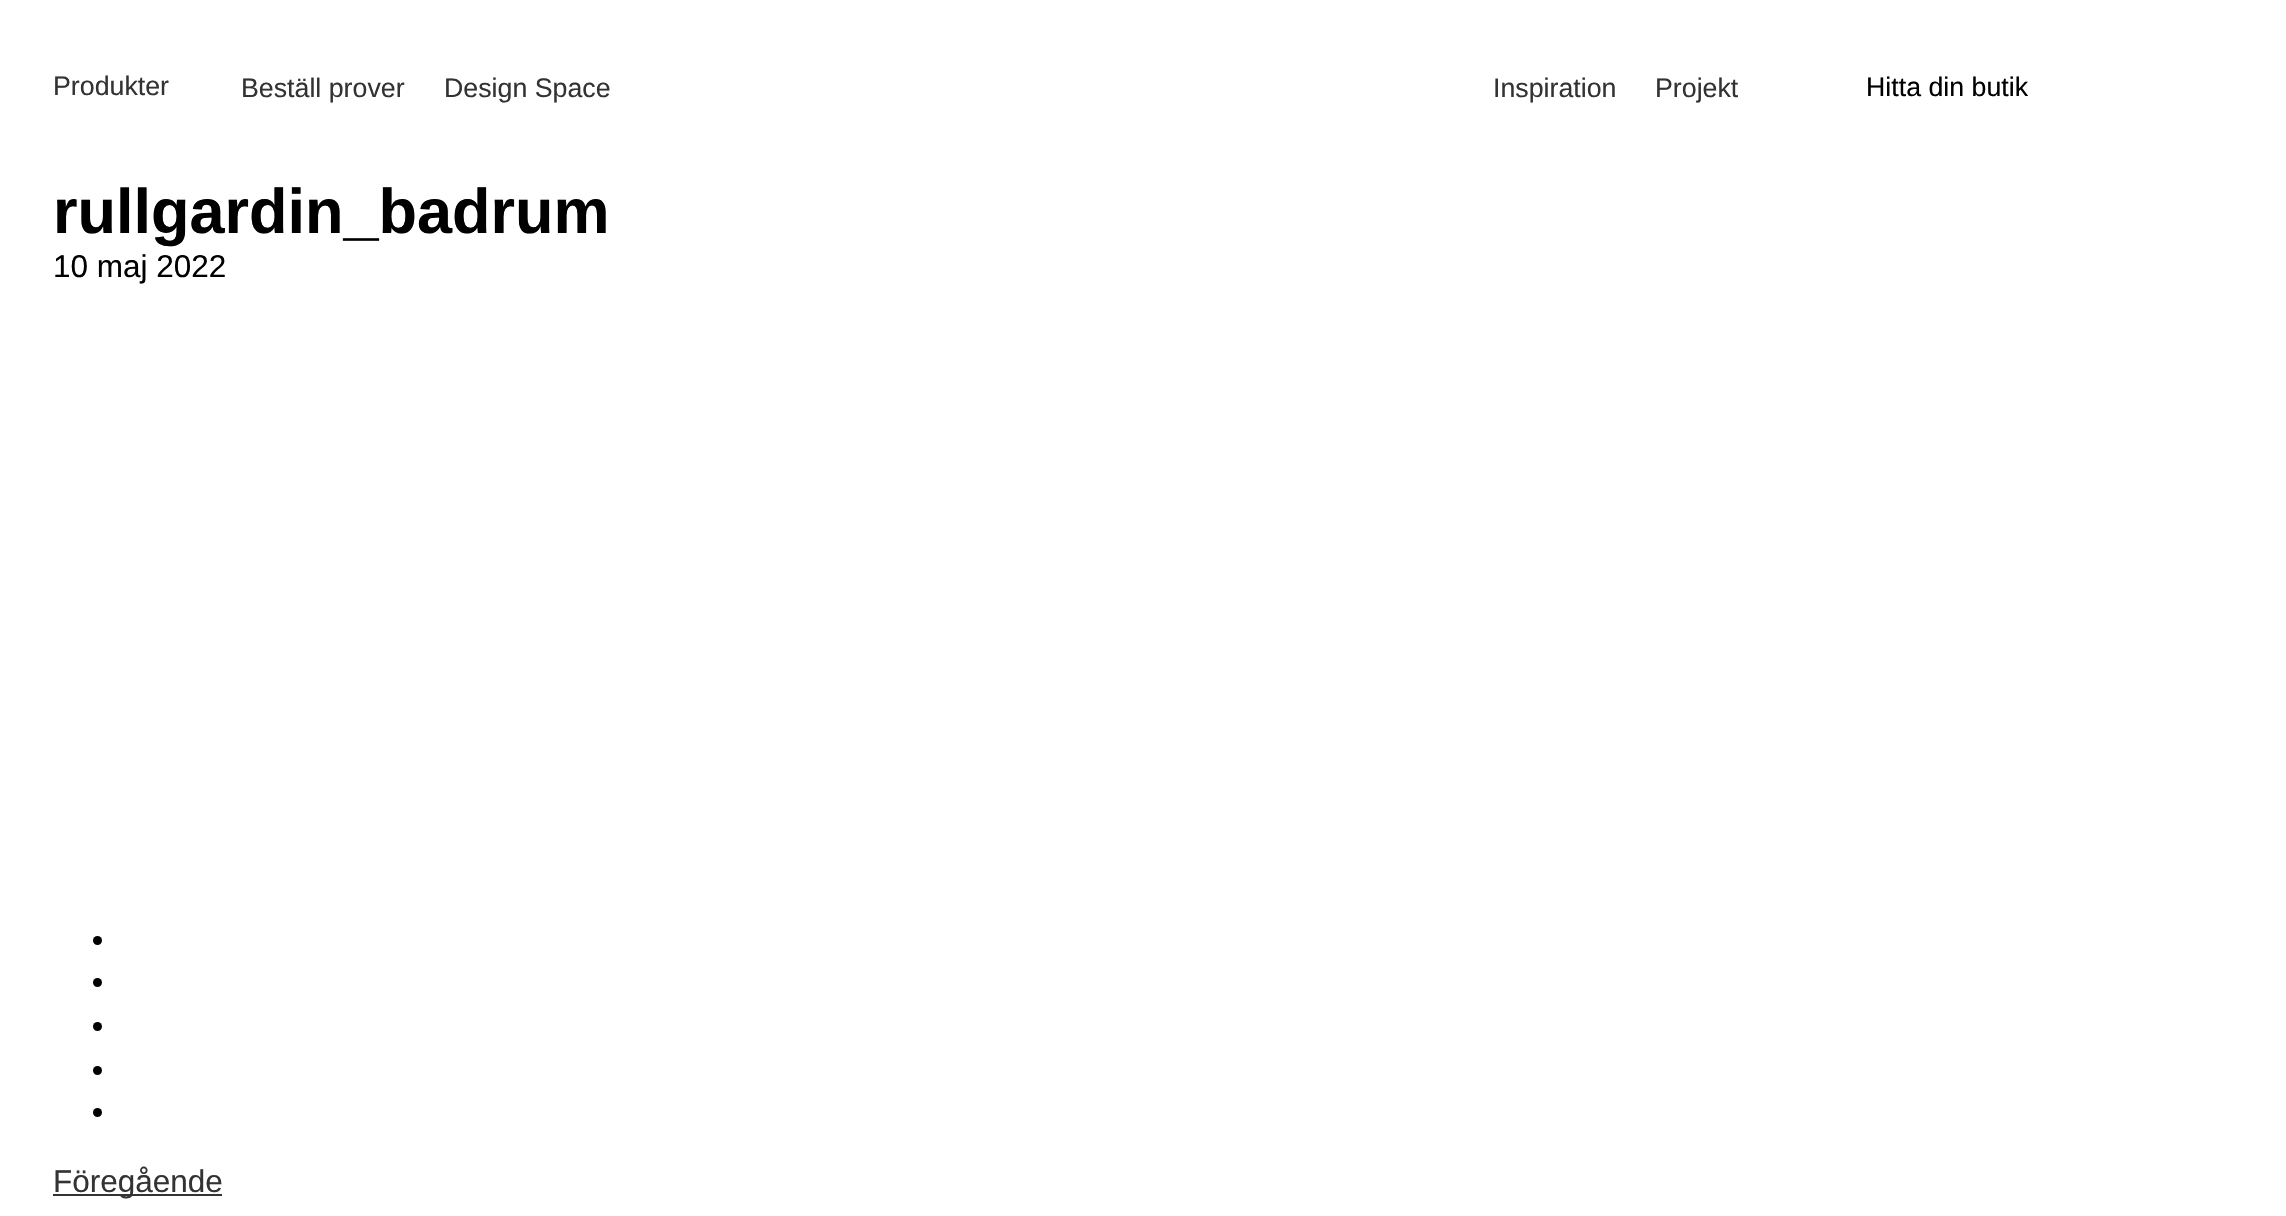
void draw(SkCanvas* canvas) {
    SkPaint paint;
    paint.setAntiAlias(true);
    canvas->clear(0xFFFFFFFF);
    SkFont font1(fontMgr->matchFamilyStyle("Liberation Sans", SkFontStyle::Normal()), 26.75f);
    font1.setSubpixel(true);
    paint.setColor(0xFF333333);
    canvas->drawString("Produkter", 53, 95, font1, paint);
    canvas->drawString("Beställ prover", 241, 97, font1, paint);
    canvas->drawString("Design Space", 444, 97, font1, paint);
    canvas->drawString("Inspiration", 1493, 97, font1, paint);
    canvas->drawString("Projekt", 1655, 97, font1, paint);
    paint.setColor(0xFF000000);
    canvas->drawString("Hitta din butik", 1866, 96, font1, paint);
    SkFont font2(fontMgr->matchFamilyStyle("Liberation Sans", SkFontStyle::Bold()), 63);
    font2.setSubpixel(true);
    canvas->drawString("rullgardin_badrum", 53, 233, font2, paint);
    SkFont font3(fontMgr->matchFamilyStyle("Liberation Sans", SkFontStyle::Normal()), 31.5f);
    font3.setSubpixel(true);
    canvas->drawString("10 maj 2022", 53, 277, font3, paint);
    canvas->drawCircle(97.5f, 940.5f, 4.5f, paint);
    canvas->drawCircle(97.5f, 982.5f, 4.5f, paint);
    canvas->drawCircle(97.5f, 1026.5f, 4.5f, paint);
    canvas->drawCircle(97.5f, 1070.5f, 4.5f, paint);
    canvas->drawCircle(97.5f, 1112.5f, 4.5f, paint);
    paint.setColor(0xFF333333);
    canvas->drawRect(SkRect::MakeXYWH(53, 1194, 169, 2), paint);
    canvas->drawString("Föregående", 53, 1192, font3, paint);
}
